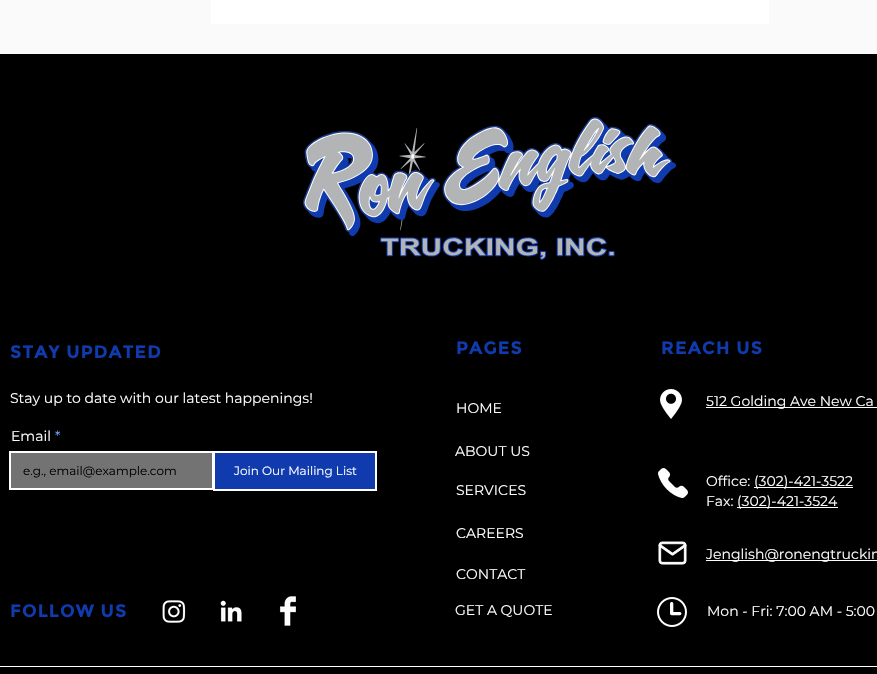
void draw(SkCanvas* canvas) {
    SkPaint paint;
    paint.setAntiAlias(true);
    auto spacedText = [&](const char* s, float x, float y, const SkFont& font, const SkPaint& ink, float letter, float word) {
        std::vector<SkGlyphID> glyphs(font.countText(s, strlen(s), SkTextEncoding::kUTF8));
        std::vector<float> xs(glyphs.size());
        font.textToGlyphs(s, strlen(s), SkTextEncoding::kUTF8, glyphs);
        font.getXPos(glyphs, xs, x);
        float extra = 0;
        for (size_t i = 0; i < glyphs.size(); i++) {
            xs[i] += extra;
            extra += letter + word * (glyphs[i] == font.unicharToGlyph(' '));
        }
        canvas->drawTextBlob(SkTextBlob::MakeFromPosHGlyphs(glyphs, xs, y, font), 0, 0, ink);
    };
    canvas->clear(0xFF000000);
    paint.setColor(0xFFFAFAFA);
    canvas->drawRect(SkRect::MakeXYWH(0, 0, 877, 54), paint);
    paint.setColor(0xFFFFFFFF);
    canvas->drawRect(SkRect::MakeXYWH(211, 0, 558, 24), paint);
    canvas->drawImageRect(SkImages::DeferredFromEncodedData(SkData::MakeFromFileName("img1.png")), SkRect::MakeXYWH(303, 117, 373, 143), SkSamplingOptions());
    SkFont font1(fontMgr->matchFamilyStyle("Montserrat", SkFontStyle::Bold()), 18);
    font1.setSubpixel(true);
    paint.setColor(0xFF103BAF);
    spacedText("STAY UPDATED", 10, 358, font1, paint, 0.9f, 0);
    SkFont font2(fontMgr->matchFamilyStyle("Montserrat", SkFontStyle::Normal()), 14);
    font2.setSubpixel(true);
    paint.setColor(0xFFFFFFFF);
    canvas->drawString("Stay up to date with our latest happenings!", 10, 403, font2, paint);
    canvas->drawString("Email", 11, 441, font2, paint);
    paint.setColor(0xFF69A6F6);
    canvas->drawString("*", 55, 441, font2, paint);
    paint.setColor(0xFF737373);
    canvas->drawRect(SkRect::MakeXYWH(10, 452, 203, 37), paint);
    paint.setStyle(SkPaint::kStroke_Style);
    paint.setStrokeWidth(2);
    paint.setColor(0xFFFFFFFF);
    canvas->drawRect(SkRect::MakeXYWH(10, 452, 203, 37), paint);
    SkFont font3(fontMgr->matchFamilyStyle("Montserrat", SkFontStyle::Normal()), 12);
    font3.setSubpixel(true);
    paint.setStyle(SkPaint::kFill_Style);
    paint.setColor(0xFF000000);
    canvas->drawString("e.g., email@example.com", 23, 475, font3, paint);
    paint.setColor(0xFF103BAF);
    canvas->drawRect(SkRect::MakeXYWH(214, 452, 162, 38), paint);
    paint.setStyle(SkPaint::kStroke_Style);
    paint.setColor(0xFFFFFFFF);
    canvas->drawRect(SkRect::MakeXYWH(214, 452, 162, 38), paint);
    paint.setStyle(SkPaint::kFill_Style);
    canvas->drawString("Join Our Mailing List", 234, 475, font3, paint);
    paint.setColor(0xFF103BAF);
    spacedText("PAGES", 456, 354, font1, paint, 0.9f, 0);
    spacedText("REACH US", 661, 354, font1, paint, 0.9f, 0);
    paint.setColor(0xFFFFFFFF);
    canvas->drawString("HOME", 456, 413, font2, paint);
    canvas->drawImageRect(SkImages::DeferredFromEncodedData(SkData::MakeFromFileName("img2.png")), SkRect::MakeXYWH(660, 389, 22, 30), SkSamplingOptions());
    canvas->drawRect(SkRect::MakeXYWH(706, 407, 171, 1), paint);
    canvas->drawString("512 Golding Ave New Ca", 706, 406, font2, paint);
    canvas->drawString("ABOUT US", 455, 456, font2, paint);
    canvas->drawString("SERVICES", 456, 495, font2, paint);
    canvas->drawImageRect(SkImages::DeferredFromEncodedData(SkData::MakeFromFileName("img3.png")), SkRect::MakeXYWH(658, 468, 30, 30), SkSamplingOptions());
    canvas->drawString("Office:", 706, 486, font2, paint);
    canvas->drawRect(SkRect::MakeXYWH(754, 487, 99, 1), paint);
    canvas->drawString("(302)-421-3522", 754, 486, font2, paint);
    canvas->drawString("Fax:", 706, 506, font2, paint);
    canvas->drawRect(SkRect::MakeXYWH(737, 507, 101, 1), paint);
    canvas->drawString("(302)-421-3524", 737, 506, font2, paint);
    canvas->drawString("CAREERS", 456, 538, font2, paint);
    canvas->drawImageRect(SkImages::DeferredFromEncodedData(SkData::MakeFromFileName("img4.png")), SkRect::MakeXYWH(658, 541, 29, 24), SkSamplingOptions());
    canvas->drawRect(SkRect::MakeXYWH(706, 560, 171, 1), paint);
    canvas->drawString("Jenglish@ronengtruckin", 706, 559, font2, paint);
    canvas->drawString("CONTACT", 456, 579, font2, paint);
    paint.setColor(0xFF103BAF);
    spacedText("FOLLOW US", 10, 617, font1, paint, 0.9f, 0);
    canvas->drawImageRect(SkImages::DeferredFromEncodedData(SkData::MakeFromFileName("img5.png")), SkRect::MakeXYWH(162, 600, 24, 23), SkSamplingOptions());
    canvas->drawImageRect(SkImages::DeferredFromEncodedData(SkData::MakeFromFileName("img6.png")), SkRect::MakeXYWH(220, 600, 22, 22), SkSamplingOptions());
    canvas->drawImageRect(SkImages::DeferredFromEncodedData(SkData::MakeFromFileName("img7.png")), SkRect::MakeXYWH(279, 596, 17, 30), SkSamplingOptions());
    paint.setColor(0xFFFFFFFF);
    canvas->drawString("GET A QUOTE", 455, 615, font2, paint);
    canvas->drawImageRect(SkImages::DeferredFromEncodedData(SkData::MakeFromFileName("img8.png")), SkRect::MakeXYWH(657, 597, 30, 30), SkSamplingOptions());
    canvas->drawString("Mon - Fri: 7:00 AM - 5:00", 707, 616, font2, paint);
    canvas->drawRect(SkRect::MakeXYWH(0, 666, 877, 1), paint);
}
